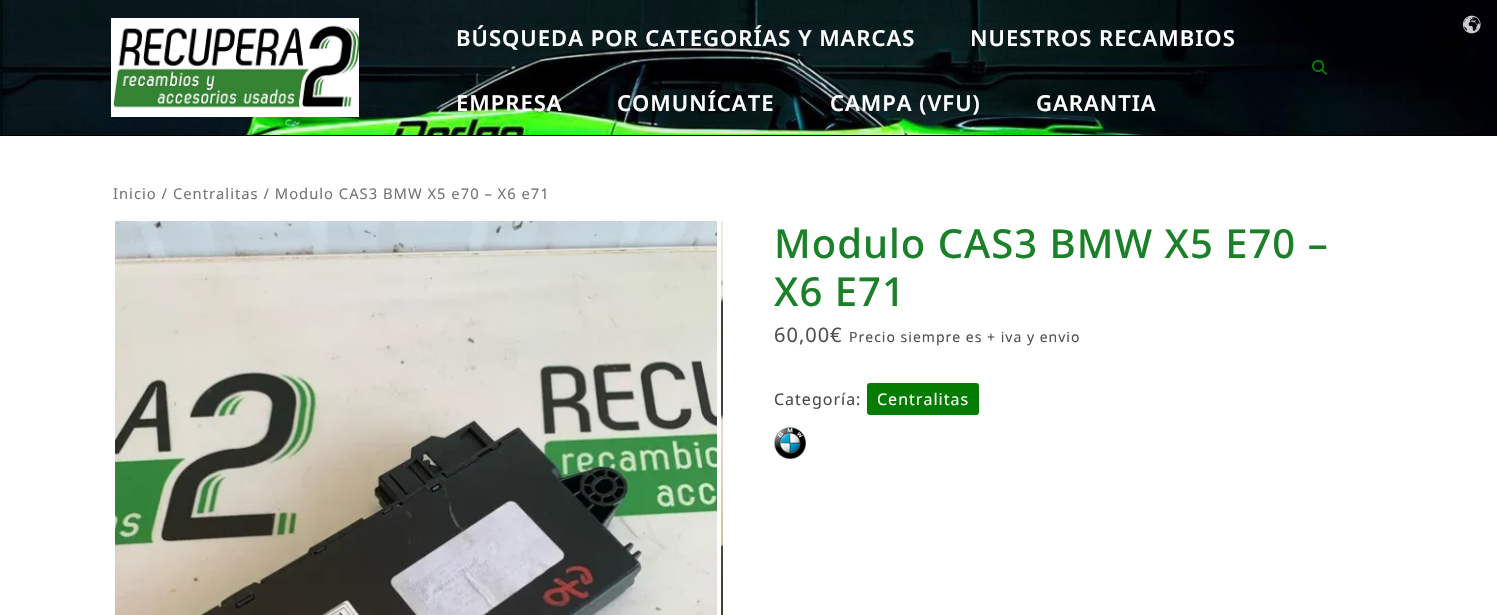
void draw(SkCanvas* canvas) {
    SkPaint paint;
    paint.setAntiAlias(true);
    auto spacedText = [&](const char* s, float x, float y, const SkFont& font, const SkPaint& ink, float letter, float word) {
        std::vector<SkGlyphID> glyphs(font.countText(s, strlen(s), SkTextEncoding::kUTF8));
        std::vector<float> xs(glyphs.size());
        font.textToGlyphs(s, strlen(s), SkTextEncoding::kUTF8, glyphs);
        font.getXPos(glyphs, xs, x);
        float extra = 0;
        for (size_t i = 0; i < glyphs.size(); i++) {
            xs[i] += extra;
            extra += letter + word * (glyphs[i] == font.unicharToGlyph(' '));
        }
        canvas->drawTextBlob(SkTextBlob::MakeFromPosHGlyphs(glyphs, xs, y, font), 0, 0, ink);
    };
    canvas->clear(0xFFFFFFFF);
    canvas->drawImageRect(SkImages::DeferredFromEncodedData(SkData::MakeFromFileName("img1.png")), SkRect::MakeXYWH(0, 0, 1497, 135), SkSamplingOptions());
    paint.setColor(0xFF000000);
    canvas->drawRect(SkRect::MakeXYWH(0, 135, 1497, 1), paint);
    canvas->drawImageRect(SkImages::DeferredFromEncodedData(SkData::MakeFromFileName("img2.png")), SkRect::MakeXYWH(111, 18, 248, 99), SkSamplingOptions());
    SkFont font1(fontMgr->matchFamilyStyle("Noto Sans", SkFontStyle(600, SkFontStyle::kNormal_Width, SkFontStyle::kUpright_Slant)), 22);
    font1.setSubpixel(true);
    paint.setColor(0xFFFFFFFF);
    spacedText("BÚSQUEDA POR CATEGORÍAS Y MARCAS", 456, 46, font1, paint, 1, 0);
    spacedText("NUESTROS RECAMBIOS", 970, 46, font1, paint, 1, 0);
    spacedText("EMPRESA", 456, 111, font1, paint, 1, 0);
    spacedText("COMUNÍCATE", 617, 111, font1, paint, 1, 0);
    spacedText("CAMPA (VFU)", 830, 111, font1, paint, 1, 0);
    spacedText("GARANTIA", 1036, 111, font1, paint, 1, 0);
    canvas->drawImageRect(SkImages::DeferredFromEncodedData(SkData::MakeFromFileName("img3.png")), SkRect::MakeXYWH(1312, 59, 15, 16), SkSamplingOptions());
    canvas->drawImageRect(SkImages::DeferredFromEncodedData(SkData::MakeFromFileName("img4.png")), SkRect::MakeXYWH(1462, 15, 19, 19), SkSamplingOptions());
    SkFont font2(fontMgr->matchFamilyStyle("Noto Sans", SkFontStyle::Normal()), 14.75f);
    font2.setSubpixel(true);
    paint.setColor(0xFF767676);
    spacedText("Inicio / Centralitas / Modulo CAS3 BMW X5 e70 – X6 e71", 113, 199, font2, paint, 1, 0);
    canvas->drawImageRect(SkImages::DeferredFromEncodedData(SkData::MakeFromFileName("img5.png")), SkRect::MakeXYWH(115, 221, 602, 394), SkSamplingOptions());
    canvas->drawImageRect(SkImages::DeferredFromEncodedData(SkData::MakeFromFileName("img6.png")), SkRect::MakeXYWH(721, 221, 2, 394), SkSamplingOptions());
    SkFont font3(fontMgr->matchFamilyStyle("Noto Sans", SkFontStyle(500, SkFontStyle::kNormal_Width, SkFontStyle::kUpright_Slant)), 40);
    font3.setSubpixel(true);
    paint.setColor(0xFF1A8129);
    spacedText("Modulo CAS3 BMW X5 E70 –", 774, 258, font3, paint, 1, 0);
    spacedText("X6 E71", 774, 306, font3, paint, 1, 0);
    SkFont font4(fontMgr->matchFamilyStyle("Noto Sans", SkFontStyle::Normal()), 20);
    font4.setSubpixel(true);
    paint.setColor(0xFF515151);
    spacedText("60,00€", 774, 342, font4, paint, 1, 0);
    SkFont font5(fontMgr->matchFamilyStyle("Noto Sans", SkFontStyle::Normal()), 14);
    font5.setSubpixel(true);
    spacedText("Precio siempre es + iva y envio", 849, 342, font5, paint, 1, 0);
    SkFont font6(fontMgr->matchFamilyStyle("Noto Sans", SkFontStyle::Normal()), 16);
    font6.setSubpixel(true);
    paint.setColor(0xFF474A4D);
    spacedText("Categoría:", 774, 405, font6, paint, 1, 0);
    paint.setColor(0xFF047C00);
    canvas->drawRoundRect(SkRect::MakeXYWH(867, 383, 112, 32), 3, 3, paint);
    paint.setColor(0xFFFFFFFF);
    spacedText("Centralitas", 877, 405, font6, paint, 1, 0);
    canvas->drawImageRect(SkImages::DeferredFromEncodedData(SkData::MakeFromFileName("img7.png")), SkRect::MakeXYWH(774, 427, 32, 32), SkSamplingOptions());
}
